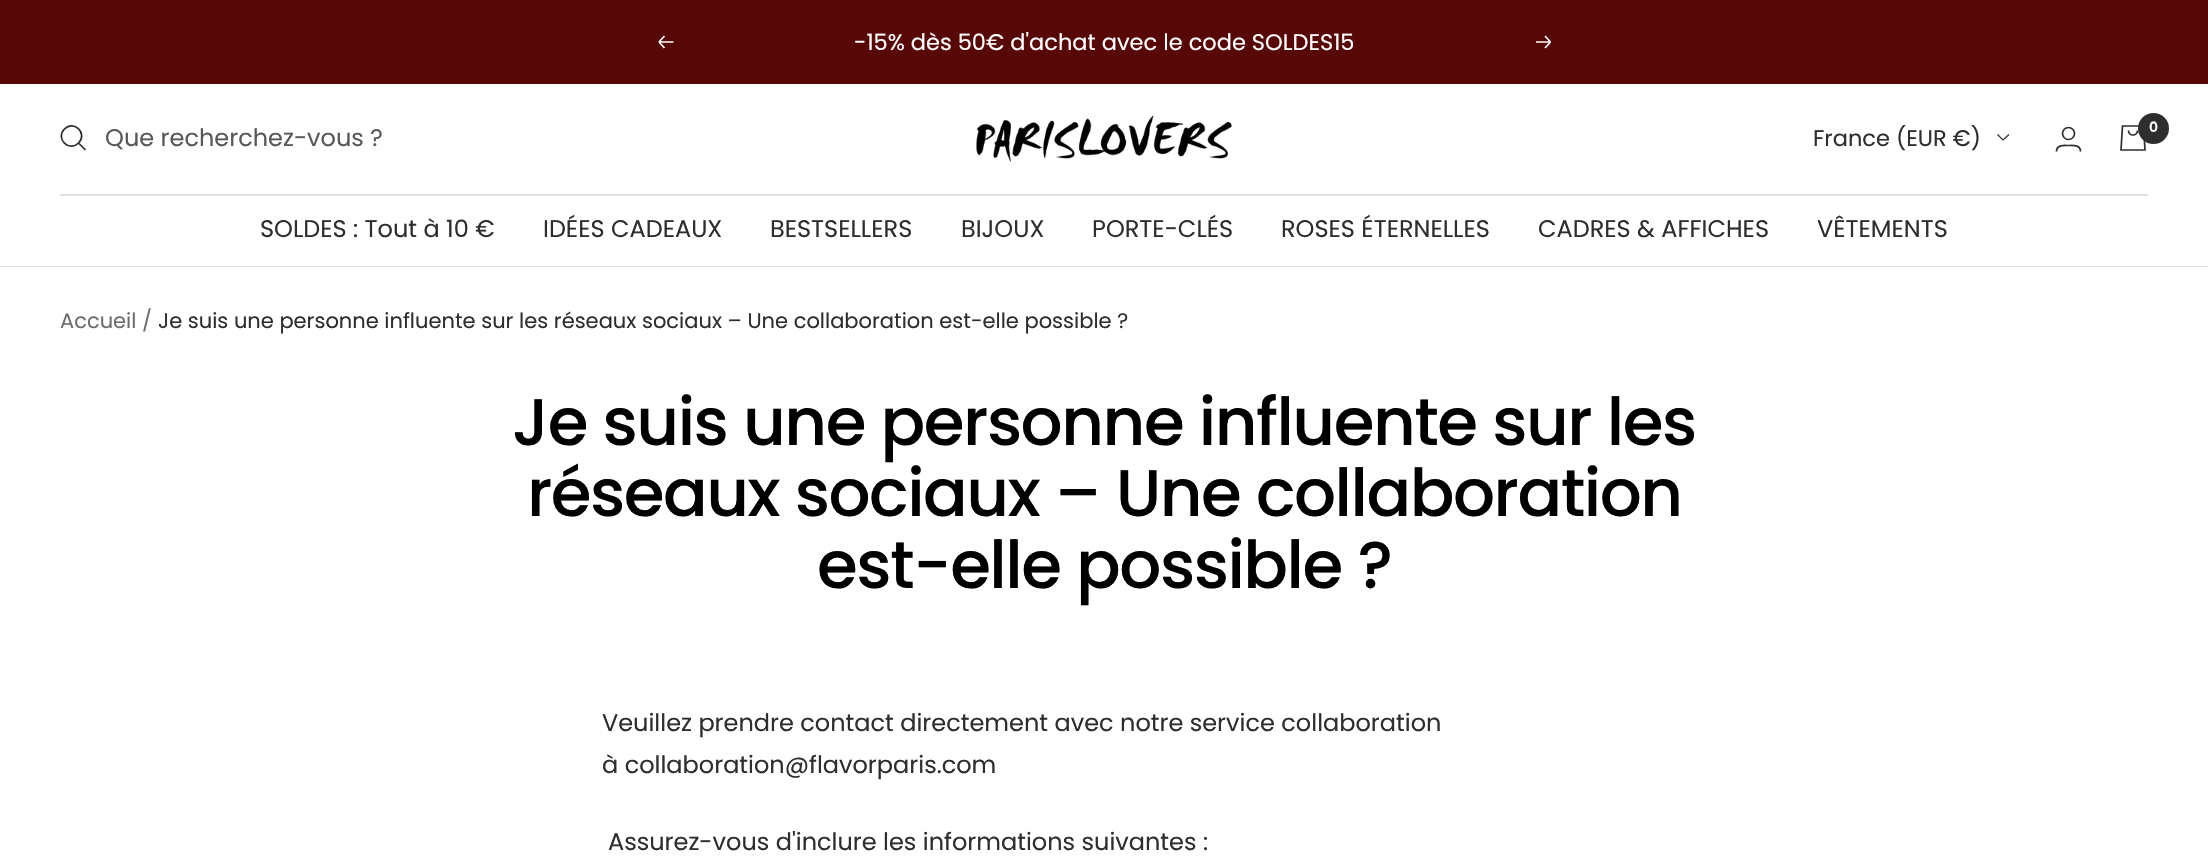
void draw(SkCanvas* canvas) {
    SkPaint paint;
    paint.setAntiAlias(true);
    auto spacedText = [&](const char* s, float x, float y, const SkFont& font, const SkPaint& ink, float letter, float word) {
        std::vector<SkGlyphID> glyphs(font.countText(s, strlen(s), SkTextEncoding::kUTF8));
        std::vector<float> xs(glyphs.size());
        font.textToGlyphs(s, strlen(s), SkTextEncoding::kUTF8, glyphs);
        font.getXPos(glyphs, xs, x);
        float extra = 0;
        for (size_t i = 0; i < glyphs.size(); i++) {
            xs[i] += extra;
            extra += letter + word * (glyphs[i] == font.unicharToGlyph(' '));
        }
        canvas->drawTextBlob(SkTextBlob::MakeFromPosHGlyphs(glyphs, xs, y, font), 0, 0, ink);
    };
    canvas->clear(0xFFFFFFFF);
    paint.setColor(0xFF570706);
    canvas->drawRect(SkRect::MakeXYWH(0, 0, 2208, 84), paint);
    paint.setStyle(SkPaint::kStroke_Style);
    paint.setStrokeWidth(1.7f);
    paint.setColor(0xFFFFFFFF);
    canvas->drawPath(SkPathBuilder().moveTo(673.5f, 42).lineTo(659, 42).moveTo(659, 42).lineTo(664.5f, 48).moveTo(659, 42).lineTo(664.5f, 36).detach(), paint);
    SkFont font1(fontMgr->matchFamilyStyle("Poppins", SkFontStyle::Normal()), 22.5f);
    font1.setSubpixel(true);
    paint.setStyle(SkPaint::kFill_Style);
    canvas->drawString("-15% dès 50€ d'achat avec le code SOLDES15", 854, 50, font1, paint);
    paint.setStyle(SkPaint::kStroke_Style);
    canvas->drawPath(SkPathBuilder().moveTo(1536, 42).lineTo(1550.5f, 42).moveTo(1550.5f, 42).lineTo(1545, 48).moveTo(1550.5f, 42).lineTo(1545, 36).detach(), paint);
    paint.setStyle(SkPaint::kFill_Style);
    paint.setColor(0xFFE0E0E0);
    canvas->drawRect(SkRect::MakeXYWH(0, 266, 2208, 1), paint);
    paint.setStyle(SkPaint::kStroke_Style);
    paint.setColor(0xFF2E2E2E);
    canvas->drawPath(SkPathBuilder().moveTo(78.5f, 143).cubicTo(88, 133.5f, 74, 119.5f, 64.5f, 129).cubicTo(55, 138.5f, 69, 152.5f, 78.5f, 143).close().moveTo(78.5f, 143).lineTo(85.5f, 150).detach(), paint);
    SkFont font2(fontMgr->matchFamilyStyle("Poppins", SkFontStyle::Normal()), 24);
    font2.setSubpixel(true);
    paint.setStyle(SkPaint::kFill_Style);
    paint.setColor(0xFF585858);
    canvas->drawString("Que recherchez-vous ?", 105, 146, font2, paint);
    canvas->drawImageRect(SkImages::DeferredFromEncodedData(SkData::MakeFromFileName("img1.png")), SkRect::MakeXYWH(976, 115, 256, 47), SkSamplingOptions());
    paint.setColor(0xFF2E2E2E);
    canvas->drawString("France (EUR €)", 1813, 146, font1, paint);
    paint.setStyle(SkPaint::kStroke_Style);
    paint.setStrokeWidth(1.2f);
    canvas->drawPath(SkPathBuilder().moveTo(1997.5f, 134.5f).lineTo(2003, 140).lineTo(2009, 134.5f).detach(), paint);
    paint.setStrokeWidth(1.7f);
    canvas->drawCircle(2068.5f, 133.5f, 6, paint);
    canvas->drawPath(SkPathBuilder().moveTo(2056.5f, 151.5f).cubicTo(2056.5f, 144.5f, 2064, 145.5f, 2068.5f, 145.5f).cubicTo(2073, 145.5f, 2080.5f, 144.5f, 2080.5f, 151.5f).detach(), paint);
    canvas->drawPath(SkPathBuilder().moveTo(2122.5f, 126).lineTo(2143.5f, 126).lineTo(2145, 150).lineTo(2121, 150).close().moveTo(2128.5f, 130.5f).cubicTo(2128.5f, 136.5f, 2137.5f, 136.5f, 2137.5f, 130.5f).detach(), paint);
    paint.setStyle(SkPaint::kFill_Style);
    canvas->drawCircle(2153.5f, 128.5f, 15.5f, paint);
    SkFont font3(fontMgr->matchFamilyStyle("Poppins", SkFontStyle(600, SkFontStyle::kNormal_Width, SkFontStyle::kUpright_Slant)), 14);
    font3.setSubpixel(true);
    paint.setColor(0xFFFFFFFF);
    canvas->drawString("0", 2149, 132, font3, paint);
    paint.setColor(0xFFE0E0E0);
    canvas->drawRect(SkRect::MakeXYWH(60, 194, 2088, 2), paint);
    paint.setColor(0xFF2E2E2E);
    canvas->drawString("SOLDES : Tout à 10 €", 260, 237, font2, paint);
    canvas->drawString("IDÉES CADEAUX", 543, 237, font2, paint);
    canvas->drawString("BESTSELLERS", 770, 237, font2, paint);
    canvas->drawString("BIJOUX", 961, 237, font2, paint);
    canvas->drawString("PORTE-CLÉS", 1092, 237, font2, paint);
    canvas->drawString("ROSES ÉTERNELLES", 1281, 237, font2, paint);
    canvas->drawString("CADRES & AFFICHES", 1538, 237, font2, paint);
    canvas->drawString("VÊTEMENTS", 1817, 237, font2, paint);
    SkFont font4(fontMgr->matchFamilyStyle("Poppins", SkFontStyle::Normal()), 21);
    font4.setSubpixel(true);
    paint.setColor(0xFF6D6D6D);
    canvas->drawString("Accueil", 60, 328, font4, paint);
    canvas->drawString("/", 142, 328, font4, paint);
    paint.setColor(0xFF2E2E2E);
    canvas->drawString("Je suis une personne influente sur les réseaux sociaux – Une collaboration est-elle possible ?", 158, 328, font4, paint);
    SkFont font5(fontMgr->matchFamilyStyle("Poppins", SkFontStyle(500, SkFontStyle::kNormal_Width, SkFontStyle::kUpright_Slant)), 66);
    font5.setSubpixel(true);
    paint.setColor(0xFF000000);
    spacedText("Je suis une personne influente sur les", 512, 445, font5, paint, -1.5f, 0);
    spacedText("réseaux sociaux – Une collaboration", 527, 516, font5, paint, -1.5f, 0);
    spacedText("est-elle possible ?", 817, 588, font5, paint, -1.5f, 0);
    paint.setColor(0xFF2E2E2E);
    canvas->drawString("Veuillez prendre contact directement avec notre service collaboration", 602, 731, font2, paint);
    canvas->drawString("à collaboration@flavorparis.com", 602, 773, font2, paint);
    canvas->drawString("Assurez-vous d'inclure les informations suivantes :", 608, 850, font2, paint);
}
